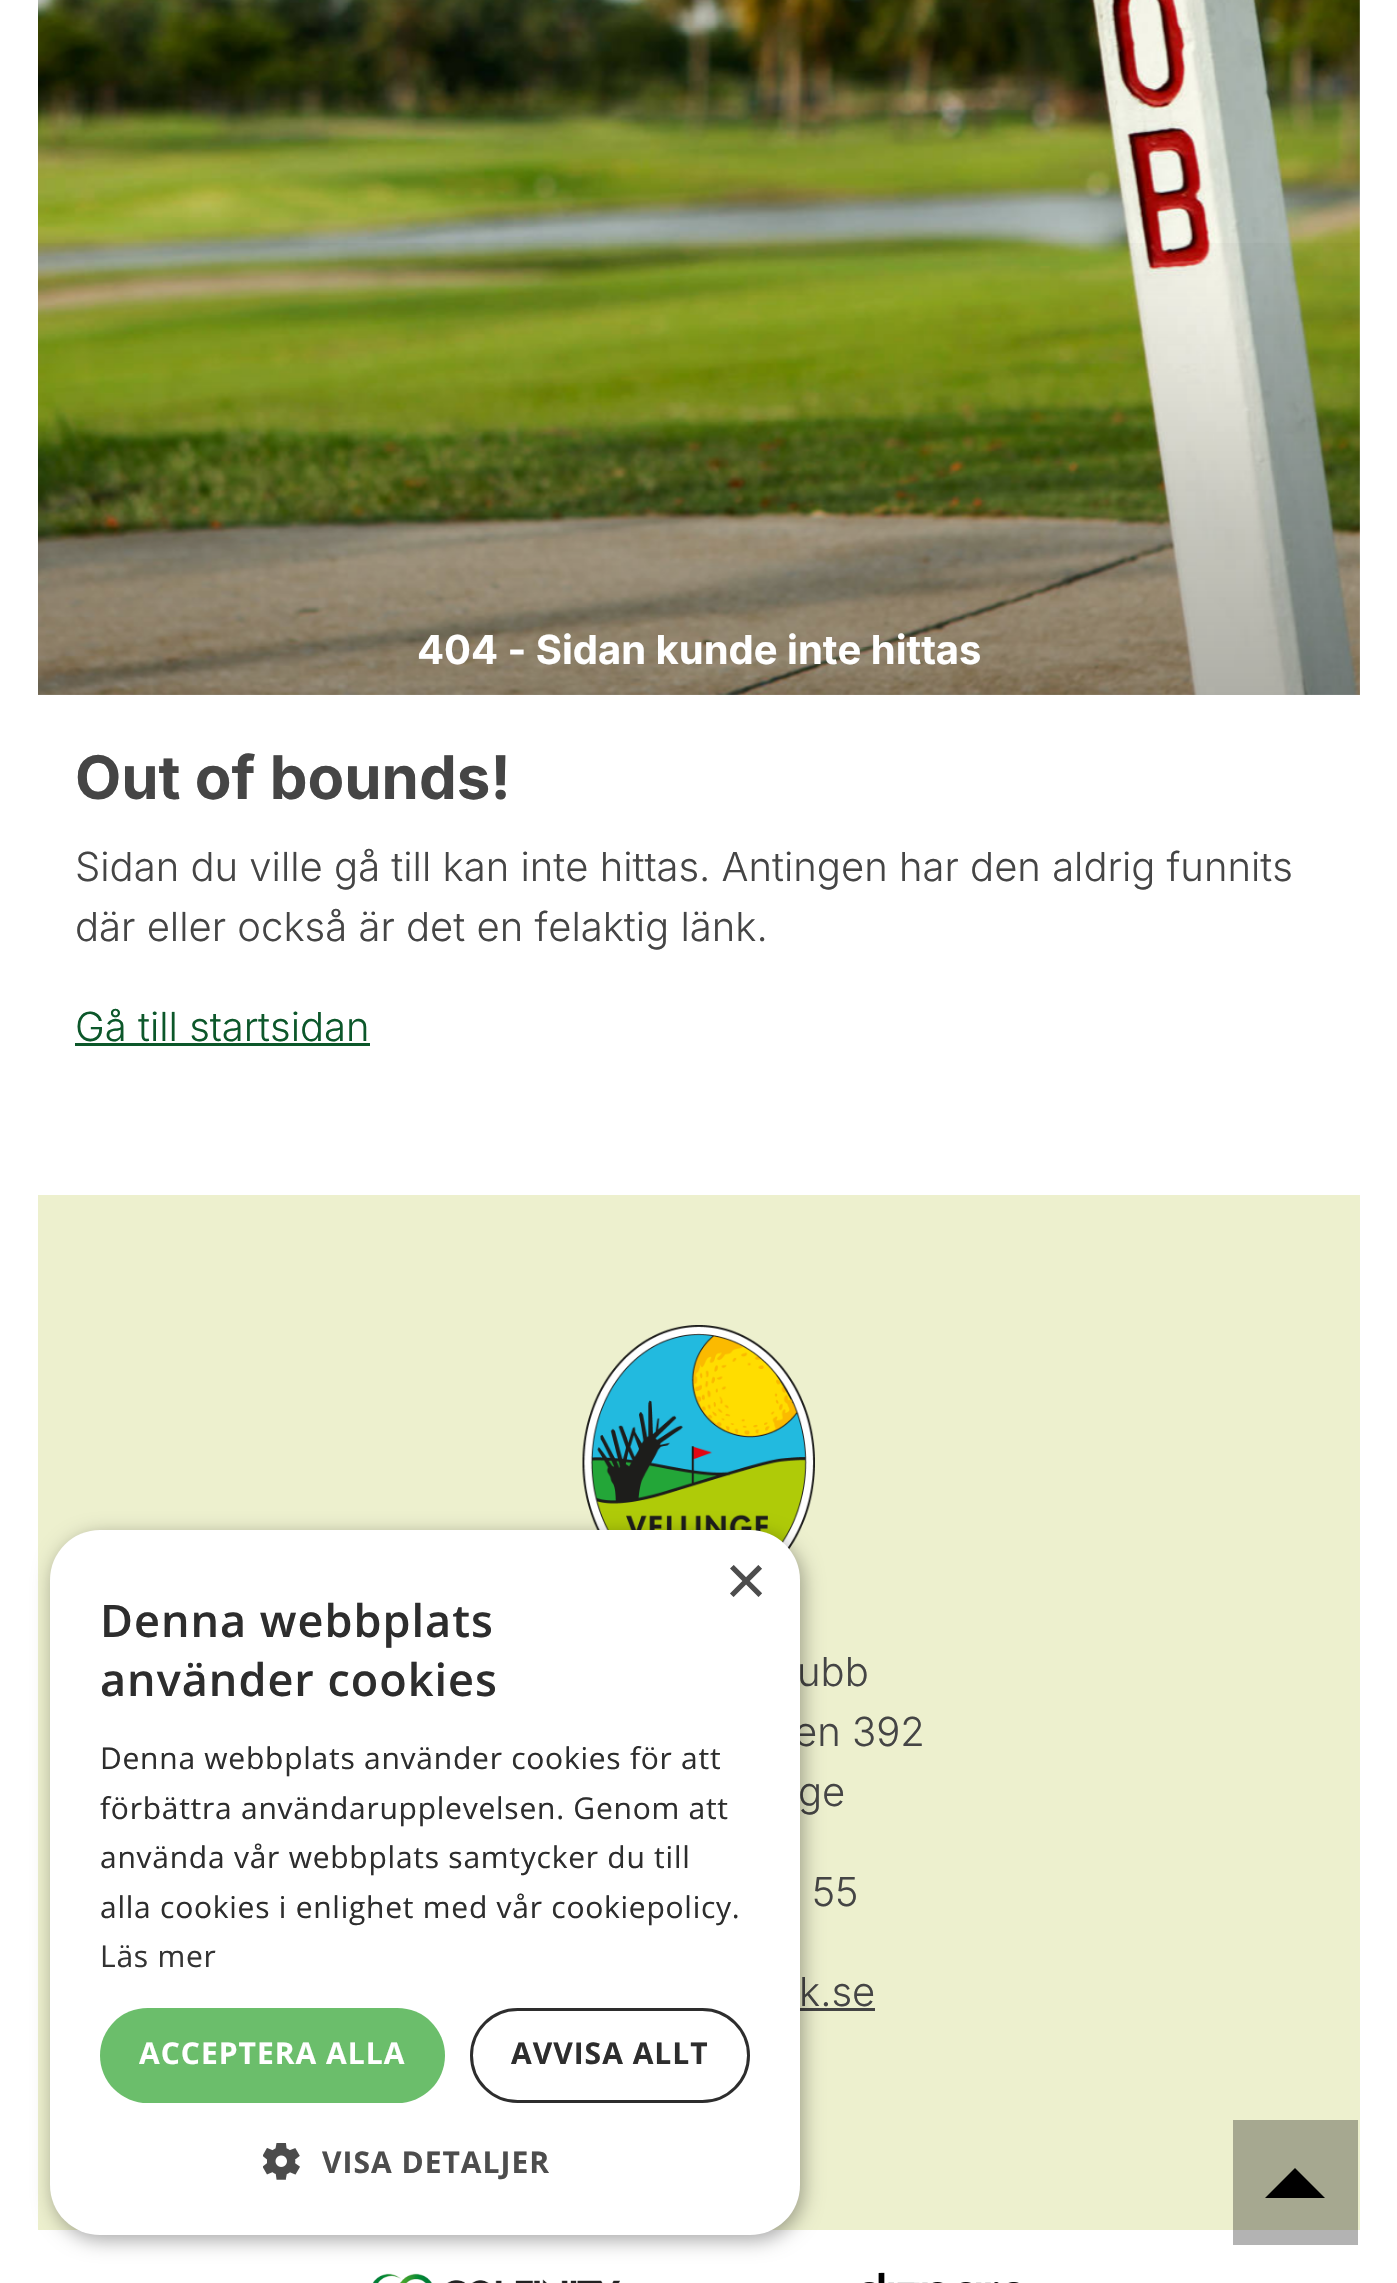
void draw(SkCanvas* canvas) {
    SkPaint paint;
    paint.setAntiAlias(true);
    auto spacedText = [&](const char* s, float x, float y, const SkFont& font, const SkPaint& ink, float letter, float word) {
        std::vector<SkGlyphID> glyphs(font.countText(s, strlen(s), SkTextEncoding::kUTF8));
        std::vector<float> xs(glyphs.size());
        font.textToGlyphs(s, strlen(s), SkTextEncoding::kUTF8, glyphs);
        font.getXPos(glyphs, xs, x);
        float extra = 0;
        for (size_t i = 0; i < glyphs.size(); i++) {
            xs[i] += extra;
            extra += letter + word * (glyphs[i] == font.unicharToGlyph(' '));
        }
        canvas->drawTextBlob(SkTextBlob::MakeFromPosHGlyphs(glyphs, xs, y, font), 0, 0, ink);
    };
    canvas->clear(0xFFFFFFFF);
    canvas->drawImageRect(SkImages::DeferredFromEncodedData(SkData::MakeFromFileName("img1.png")), SkRect::MakeXYWH(38, 0, 1322, 695), SkSamplingOptions());
    {
        const SkColor colors[] = {0x4D000000, 0x00000000, 0x0000D4FF};
        const float stops[] = {0, 0.5f, 1};
        const SkPoint ends[] = {{699, 695}, {699, -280}};
        paint.setShader(SkGradientShader::MakeLinear(ends, colors, stops, 3, SkTileMode::kClamp));
        paint.setAlpha(255);
    }
    canvas->drawRect(SkRect::MakeXYWH(38, 243, 1322, 452), paint);
    SkFont font1(fontMgr->matchFamilyStyle("Inter", SkFontStyle::Bold()), 40);
    font1.setSubpixel(true);
    paint.setShader(nullptr);
    paint.setColor(0xFFFFFFFF);
    canvas->drawString("404 - Sidan kunde inte hittas", 417, 664, font1, paint);
    SkFont font2(fontMgr->matchFamilyStyle("Inter", SkFontStyle::Bold()), 60);
    font2.setSubpixel(true);
    paint.setColor(0xFF454545);
    canvas->drawString("Out of bounds!", 75, 799, font2, paint);
    SkFont font3(fontMgr->matchFamilyStyle("Inter", SkFontStyle(300, SkFontStyle::kNormal_Width, SkFontStyle::kUpright_Slant)), 40);
    font3.setSubpixel(true);
    canvas->drawString("Sidan du ville gå till kan inte hittas. Antingen har den aldrig funnits", 75, 881, font3, paint);
    canvas->drawString("där eller också är det en felaktig länk.", 75, 941, font3, paint);
    paint.setColor(0xFF0C572A);
    canvas->drawString("Gå till startsidan", 75, 1041, font3, paint);
    canvas->drawRect(SkRect::MakeXYWH(75, 1043, 295, 3), paint);
    paint.setColor(0xFFB3B3B3);
    canvas->drawRect(SkRect::MakeXYWH(1233, 2230, 125, 15), paint);
    paint.setColor(0xFFEDF0CE);
    canvas->drawRect(SkRect::MakeXYWH(38, 1195, 1322, 1035), paint);
    paint.setColor(0xFFA6A890);
    canvas->drawRect(SkRect::MakeXYWH(1233, 2120, 125, 110), paint);
    canvas->drawImageRect(SkImages::DeferredFromEncodedData(SkData::MakeFromFileName("img2.png")), SkRect::MakeXYWH(582, 1325, 233, 225), SkSamplingOptions());
    paint.setColor(0xFF454545);
    canvas->drawString("ubb", 797, 1686, font3, paint);
    canvas->drawString("en 392", 794, 1746, font3, paint);
    canvas->drawString("ge", 798, 1806, font3, paint);
    canvas->drawString("55", 812, 1906, font3, paint);
    canvas->drawString("k.se", 799, 2006, font3, paint);
    paint.setColor(0xFF434343);
    canvas->drawRect(SkRect::MakeXYWH(800, 2008, 75, 3), paint);
    canvas->drawImageRect(SkImages::DeferredFromEncodedData(SkData::MakeFromFileName("img3.png")), SkRect::MakeXYWH(372, 2273, 248, 10), SkSamplingOptions());
    canvas->drawImageRect(SkImages::DeferredFromEncodedData(SkData::MakeFromFileName("img4.png")), SkRect::MakeXYWH(864, 2272, 155, 11), SkSamplingOptions());
    paint.setColor(0xFF000000);
    canvas->drawPath(SkPathBuilder().moveTo(1325, 2198).lineTo(1265, 2198).lineTo(1295, 2168).close().detach(), paint);
    paint.setColor(0x59000000);
    paint.setMaskFilter(SkMaskFilter::MakeBlur(kNormal_SkBlurStyle, 10));
    canvas->drawRoundRect(SkRect::MakeXYWH(53, 1535, 750, 705), 50, 50, paint);
    paint.setMaskFilter(nullptr);
    paint.setColor(0xFFFFFFFF);
    canvas->drawRoundRect(SkRect::MakeXYWH(50, 1530, 750, 705), 50, 50, paint);
    SkFont font4(fontMgr->matchFamilyStyle("Liberation Sans", SkFontStyle::Normal()), 72);
    font4.setSubpixel(true);
    paint.setColor(0xFF4D4D4D);
    canvas->drawString("×", 725, 1605, font4, paint);
    SkFont font5(fontMgr->matchFamilyStyle("Open Sans", SkFontStyle(600, SkFontStyle::kNormal_Width, SkFontStyle::kUpright_Slant)), 45);
    font5.setSubpixel(true);
    paint.setColor(0xFF2D2D2D);
    spacedText("Denna webbplats", 100, 1637, font5, paint, 1, 0);
    spacedText("använder cookies", 100, 1696, font5, paint, 1, 0);
    SkFont font6(fontMgr->matchFamilyStyle("Open Sans", SkFontStyle::Normal()), 30);
    font6.setSubpixel(true);
    spacedText("Denna webbplats använder cookies för att", 100, 1769, font6, paint, 0.75f, 0);
    spacedText("förbättra användarupplevelsen. Genom att", 100, 1819, font6, paint, 0.75f, 0);
    spacedText("använda vår webbplats samtycker du till", 100, 1868, font6, paint, 0.75f, 0);
    spacedText("alla cookies i enlighet med vår cookiepolicy.", 100, 1918, font6, paint, 0.75f, 0);
    paint.setColor(0xFF333333);
    spacedText("Läs mer", 100, 1967, font6, paint, 0.75f, 0);
    paint.setColor(0xFF6BBE6B);
    canvas->drawRoundRect(SkRect::MakeXYWH(100, 2008, 345, 95), 47.5f, 47.5f, paint);
    SkFont font7(fontMgr->matchFamilyStyle("Open Sans", SkFontStyle::Bold()), 30);
    font7.setSubpixel(true);
    paint.setColor(0xFFFFFFFF);
    spacedText("ACCEPTERA ALLA", 139, 2064, font7, paint, 1, 0);
    paint.setStyle(SkPaint::kStroke_Style);
    paint.setStrokeWidth(3);
    paint.setColor(0xFF2D2D2D);
    canvas->drawRoundRect(SkRect::MakeXYWH(471.5f, 2009.5f, 277, 92), 46, 46, paint);
    paint.setStyle(SkPaint::kFill_Style);
    spacedText("AVVISA ALLT", 511, 2064, font7, paint, 1, 0);
    canvas->drawImageRect(SkImages::DeferredFromEncodedData(SkData::MakeFromFileName("img5.png")), SkRect::MakeXYWH(263, 2143, 37, 37), SkSamplingOptions());
    paint.setColor(0xFF4D4D4D);
    spacedText("VISA DETALJER", 322, 2173, font7, paint, 1, 0);
}
